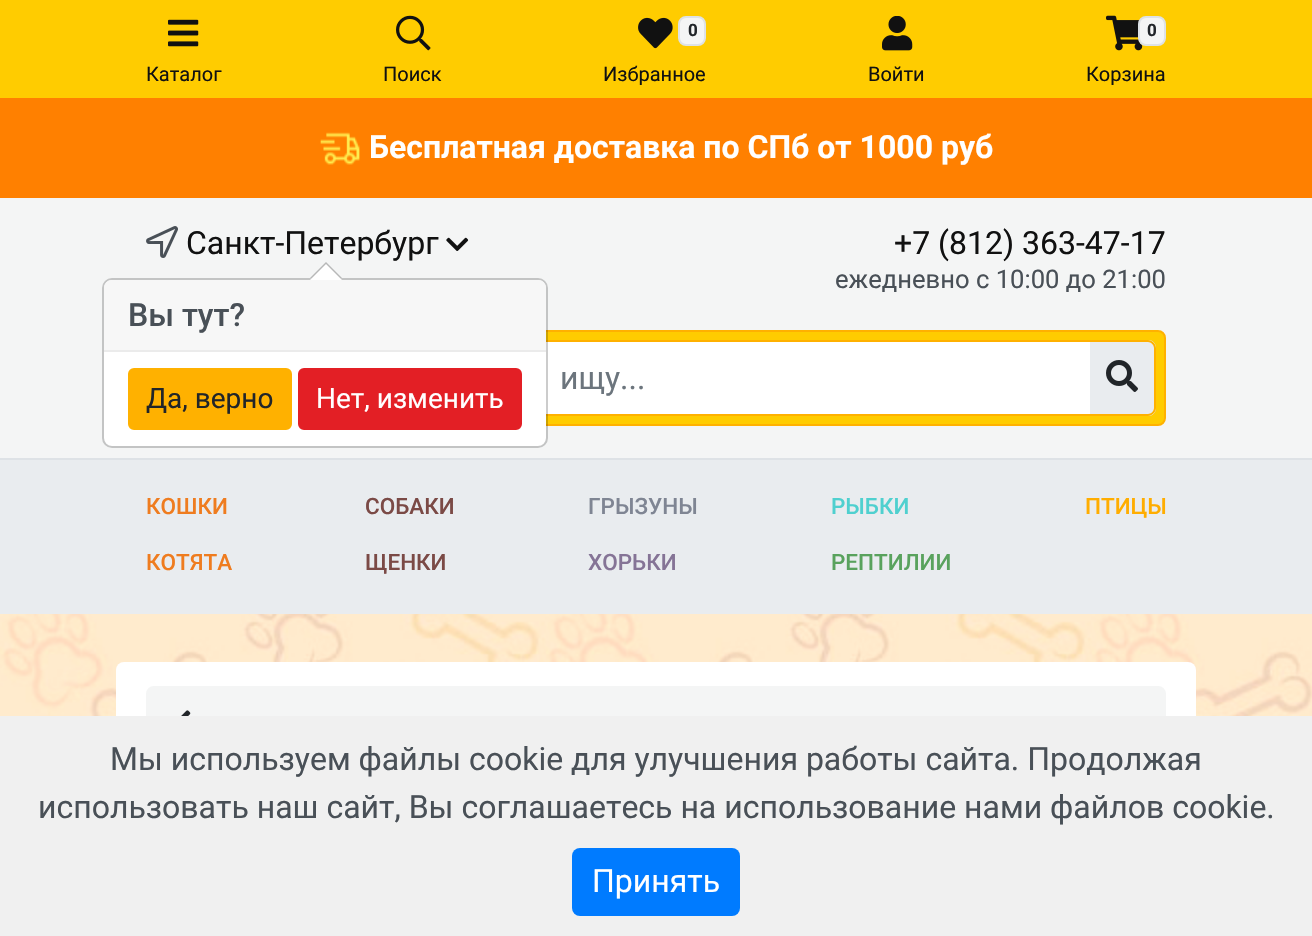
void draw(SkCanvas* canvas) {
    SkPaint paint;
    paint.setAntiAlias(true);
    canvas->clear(0xFFFFFFFF);
    canvas->drawImageRect(SkImages::DeferredFromEncodedData(SkData::MakeFromFileName("img1.png")), SkRect::MakeXYWH(0, 614, 1312, 102), SkSamplingOptions());
    paint.setColor(0xFFFFCC00);
    canvas->drawRect(SkRect::MakeXYWH(0, 0, 1312, 98), paint);
    canvas->drawImageRect(SkImages::DeferredFromEncodedData(SkData::MakeFromFileName("img2.png")), SkRect::MakeXYWH(168, 19, 31, 28), SkSamplingOptions());
    SkFont font1(fontMgr->matchFamilyStyle("Roboto", SkFontStyle::Normal()), 20);
    font1.setSubpixel(true);
    paint.setColor(0xFF111111);
    canvas->drawString("Каталог", 146, 81, font1, paint);
    canvas->drawImageRect(SkImages::DeferredFromEncodedData(SkData::MakeFromFileName("img3.png")), SkRect::MakeXYWH(396, 15, 35, 36), SkSamplingOptions());
    canvas->drawString("Поиск", 383, 81, font1, paint);
    canvas->drawImageRect(SkImages::DeferredFromEncodedData(SkData::MakeFromFileName("img4.png")), SkRect::MakeXYWH(638, 17, 35, 32), SkSamplingOptions());
    paint.setColor(0xFFF4F5F5);
    canvas->drawRoundRect(SkRect::MakeXYWH(679, 17, 26, 28), 7, 7, paint);
    paint.setStyle(SkPaint::kStroke_Style);
    paint.setStrokeWidth(2);
    paint.setColor(0xFFDEE2E6);
    canvas->drawRoundRect(SkRect::MakeXYWH(679, 17, 26, 28), 7, 7, paint);
    SkFont font2(fontMgr->matchFamilyStyle("Roboto", SkFontStyle::Bold()), 17);
    font2.setSubpixel(true);
    paint.setStyle(SkPaint::kFill_Style);
    paint.setColor(0xFF212529);
    canvas->drawString("0", 688, 36, font2, paint);
    paint.setColor(0xFF111111);
    canvas->drawString("Избранное", 603, 81, font1, paint);
    canvas->drawImageRect(SkImages::DeferredFromEncodedData(SkData::MakeFromFileName("img5.png")), SkRect::MakeXYWH(882, 16, 31, 35), SkSamplingOptions());
    canvas->drawString("Войти", 868, 81, font1, paint);
    canvas->drawImageRect(SkImages::DeferredFromEncodedData(SkData::MakeFromFileName("img6.png")), SkRect::MakeXYWH(1106, 15, 37, 36), SkSamplingOptions());
    paint.setColor(0xFFF4F5F5);
    canvas->drawRoundRect(SkRect::MakeXYWH(1139, 17, 26, 28), 7, 7, paint);
    paint.setStyle(SkPaint::kStroke_Style);
    paint.setColor(0xFFDEE2E6);
    canvas->drawRoundRect(SkRect::MakeXYWH(1139, 17, 26, 28), 7, 7, paint);
    paint.setStyle(SkPaint::kFill_Style);
    paint.setColor(0xFF212529);
    canvas->drawString("0", 1147, 36, font2, paint);
    paint.setColor(0xFF111111);
    canvas->drawString("Корзина", 1086, 81, font1, paint);
    paint.setColor(0xFFFF8000);
    canvas->drawRect(SkRect::MakeXYWH(0, 98, 1312, 100), paint);
    canvas->drawImageRect(SkImages::DeferredFromEncodedData(SkData::MakeFromFileName("img7.png")), SkRect::MakeXYWH(320, 132, 40, 33), SkSamplingOptions());
    SkFont font3(fontMgr->matchFamilyStyle("Roboto", SkFontStyle::Bold()), 32);
    font3.setSubpixel(true);
    paint.setColor(0xFFFFFFFF);
    canvas->drawString("Бесплатная доставка по СПб от 1000 руб", 369, 158, font3, paint);
    paint.setColor(0xFFF4F5F5);
    canvas->drawRect(SkRect::MakeXYWH(0, 198, 1312, 260), paint);
    canvas->drawImageRect(SkImages::DeferredFromEncodedData(SkData::MakeFromFileName("img8.png")), SkRect::MakeXYWH(146, 226, 32, 32), SkSamplingOptions());
    SkFont font4(fontMgr->matchFamilyStyle("Roboto", SkFontStyle::Normal()), 32);
    font4.setSubpixel(true);
    paint.setColor(0xFF111111);
    canvas->drawString("Санкт-Петербург", 186, 254, font4, paint);
    canvas->drawImageRect(SkImages::DeferredFromEncodedData(SkData::MakeFromFileName("img9.png")), SkRect::MakeXYWH(446, 237, 23, 14), SkSamplingOptions());
    canvas->drawString("+7 (812) 363-47-17", 894, 254, font4, paint);
    SkFont font5(fontMgr->matchFamilyStyle("Roboto", SkFontStyle::Normal()), 25.6f);
    font5.setSubpixel(true);
    paint.setColor(0xFF495057);
    canvas->drawString("ежедневно c 10:00 до 21:00", 835, 288, font5, paint);
    paint.setColor(0xFFFFCC00);
    canvas->drawRoundRect(SkRect::MakeXYWH(497, 331, 668, 94), 7, 7, paint);
    paint.setStyle(SkPaint::kStroke_Style);
    paint.setColor(0xFFFFB100);
    canvas->drawRoundRect(SkRect::MakeXYWH(497, 331, 668, 94), 7, 7, paint);
    paint.setStyle(SkPaint::kFill_Style);
    paint.setColor(0xFFFFFFFF);
    canvas->drawRect(SkRect::MakeXYWH(546, 342, 544, 72), paint);
    paint.setColor(0xFFFFB100);
    canvas->drawPath(SkPathBuilder(SkPathFillType::kEvenOdd).moveTo(514, 340).lineTo(1092, 340).lineTo(1092, 416).lineTo(514, 416).cubicTo(510, 416, 506, 412, 506, 408).lineTo(506, 348).cubicTo(506, 344, 510, 340, 514, 340).close().moveTo(514, 342).lineTo(1092, 342).lineTo(1092, 414).lineTo(514, 414).cubicTo(511, 414, 508, 411, 508, 408).lineTo(508, 348).cubicTo(508, 345, 511, 342, 514, 342).close().detach(), paint);
    paint.setColor(0xFFFFFFFF);
    canvas->drawRoundRect(SkRect::MakeXYWH(104, 280, 442, 166), 8, 8, paint);
    paint.setStyle(SkPaint::kStroke_Style);
    paint.setColor(0x33000000);
    canvas->drawRoundRect(SkRect::MakeXYWH(103, 279, 444, 168), 9, 9, paint);
    paint.setStyle(SkPaint::kFill_Style);
    paint.setColor(0xFFB7B8B8);
    canvas->drawPath(SkPathBuilder().moveTo(342, 278).lineTo(310, 278).lineTo(326, 262).close().detach(), paint);
    paint.setColor(0xFFFFFFFF);
    canvas->drawPath(SkPathBuilder().moveTo(342, 280).lineTo(310, 280).lineTo(326, 264).close().detach(), paint);
    paint.setColor(0xFFF7F7F7);
    canvas->drawPath(SkPathBuilder().moveTo(112, 280).lineTo(538, 280).cubicTo(542.5f, 280, 546, 283.5f, 546, 288).lineTo(546, 352).lineTo(104, 352).lineTo(104, 288).cubicTo(104, 283.5f, 107.5f, 280, 112, 280).close().detach(), paint);
    paint.setColor(0xFFEBEBEB);
    canvas->drawRect(SkRect::MakeXYWH(104, 350, 442, 2), paint);
    SkFont font6(fontMgr->matchFamilyStyle("Roboto", SkFontStyle(500, SkFontStyle::kNormal_Width, SkFontStyle::kUpright_Slant)), 32);
    font6.setSubpixel(true);
    paint.setColor(0xFF495057);
    canvas->drawString("Вы тут?", 128, 326, font6, paint);
    paint.setColor(0xFFFFB100);
    canvas->drawRoundRect(SkRect::MakeXYWH(129, 369, 162, 60), 5, 5, paint);
    paint.setStyle(SkPaint::kStroke_Style);
    canvas->drawRoundRect(SkRect::MakeXYWH(129, 369, 162, 60), 5, 5, paint);
    SkFont font7(fontMgr->matchFamilyStyle("Roboto", SkFontStyle::Normal()), 28);
    font7.setSubpixel(true);
    paint.setStyle(SkPaint::kFill_Style);
    paint.setColor(0xFF212529);
    canvas->drawString("Да, верно", 146, 408, font7, paint);
    paint.setColor(0xFFE31F25);
    canvas->drawRoundRect(SkRect::MakeXYWH(299, 369, 222, 60), 5, 5, paint);
    paint.setStyle(SkPaint::kStroke_Style);
    canvas->drawRoundRect(SkRect::MakeXYWH(299, 369, 222, 60), 5, 5, paint);
    paint.setStyle(SkPaint::kFill_Style);
    paint.setColor(0xFFFFFFFF);
    canvas->drawString("Нет, изменить", 316, 408, font7, paint);
    paint.setColor(0xFFDEE2E6);
    canvas->drawRect(SkRect::MakeXYWH(0, 458, 1312, 2), paint);
    paint.setColor(0xFF6C757D);
    canvas->drawString("ищу...", 560, 389, font4, paint);
    paint.setColor(0xFFE9ECEF);
    canvas->drawPath(SkPathBuilder().moveTo(1090, 340).lineTo(1148, 340).cubicTo(1152.5f, 340, 1156, 343.5f, 1156, 348).lineTo(1156, 408).cubicTo(1156, 412.5f, 1152.5f, 416, 1148, 416).lineTo(1090, 416).close().detach(), paint);
    paint.setColor(0xFFFFB100);
    canvas->drawPath(SkPathBuilder(SkPathFillType::kEvenOdd).moveTo(1090, 340).lineTo(1148, 340).cubicTo(1152, 340, 1156, 344, 1156, 348).lineTo(1156, 408).cubicTo(1156, 412, 1152, 416, 1148, 416).lineTo(1090, 416).close().moveTo(1090, 342).lineTo(1148, 342).cubicTo(1151, 342, 1154, 345, 1154, 348).lineTo(1154, 408).cubicTo(1154, 411, 1151, 414, 1148, 414).lineTo(1090, 414).close().detach(), paint);
    canvas->drawImageRect(SkImages::DeferredFromEncodedData(SkData::MakeFromFileName("img10.png")), SkRect::MakeXYWH(1106, 360, 32, 32), SkSamplingOptions());
    paint.setColor(0xFFE9ECEF);
    canvas->drawRect(SkRect::MakeXYWH(0, 460, 1312, 154), paint);
    SkFont font8(fontMgr->matchFamilyStyle("Roboto", SkFontStyle(500, SkFontStyle::kNormal_Width, SkFontStyle::kUpright_Slant)), 22.5f);
    font8.setSubpixel(true);
    paint.setColor(0xFFEF7C1F);
    canvas->drawString("КОШКИ", 146, 514, font8, paint);
    canvas->drawString("КОТЯТА", 146, 570, font8, paint);
    paint.setColor(0xFF7B4A46);
    canvas->drawString("СОБАКИ", 365, 514, font8, paint);
    canvas->drawString("ЩЕНКИ", 365, 570, font8, paint);
    paint.setColor(0xFF7F8593);
    canvas->drawString("ГРЫЗУНЫ", 588, 514, font8, paint);
    paint.setColor(0xFF857496);
    canvas->drawString("ХОРЬКИ", 588, 570, font8, paint);
    paint.setColor(0xFF4FD0CF);
    canvas->drawString("РЫБКИ", 831, 514, font8, paint);
    paint.setColor(0xFF59A25D);
    canvas->drawString("РЕПТИЛИИ", 831, 570, font8, paint);
    paint.setColor(0xFFFFAD00);
    canvas->drawString("ПТИЦЫ", 1085, 514, font8, paint);
    paint.setColor(0xFFFFFFFF);
    canvas->drawRoundRect(SkRect::MakeXYWH(116, 662, 1080, 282), 8, 8, paint);
    paint.setColor(0xFFF4F5F5);
    canvas->drawRoundRect(SkRect::MakeXYWH(147, 687, 1018, 74), 7, 7, paint);
    paint.setStyle(SkPaint::kStroke_Style);
    canvas->drawRoundRect(SkRect::MakeXYWH(147, 687, 1018, 74), 7, 7, paint);
    canvas->drawImageRect(SkImages::DeferredFromEncodedData(SkData::MakeFromFileName("img11.png")), SkRect::MakeXYWH(181, 710, 10, 6), SkSamplingOptions());
    paint.setStyle(SkPaint::kFill_Style);
    paint.setColor(0xFFF0F0F0);
    canvas->drawRect(SkRect::MakeXYWH(0, 716, 1312, 220), paint);
    paint.setColor(0xFF495057);
    canvas->drawString("Мы используем файлы cookie для улучшения работы сайта. Продолжая", 110, 770, font4, paint);
    canvas->drawString("использовать наш сайт, Вы соглашаетесь на использование нами файлов cookie.", 38, 818, font4, paint);
    paint.setColor(0xFF007BFF);
    canvas->drawRoundRect(SkRect::MakeXYWH(572, 848, 168, 68), 8, 8, paint);
    paint.setColor(0xFFFFFFFF);
    canvas->drawString("Принять", 592, 892, font4, paint);
}
